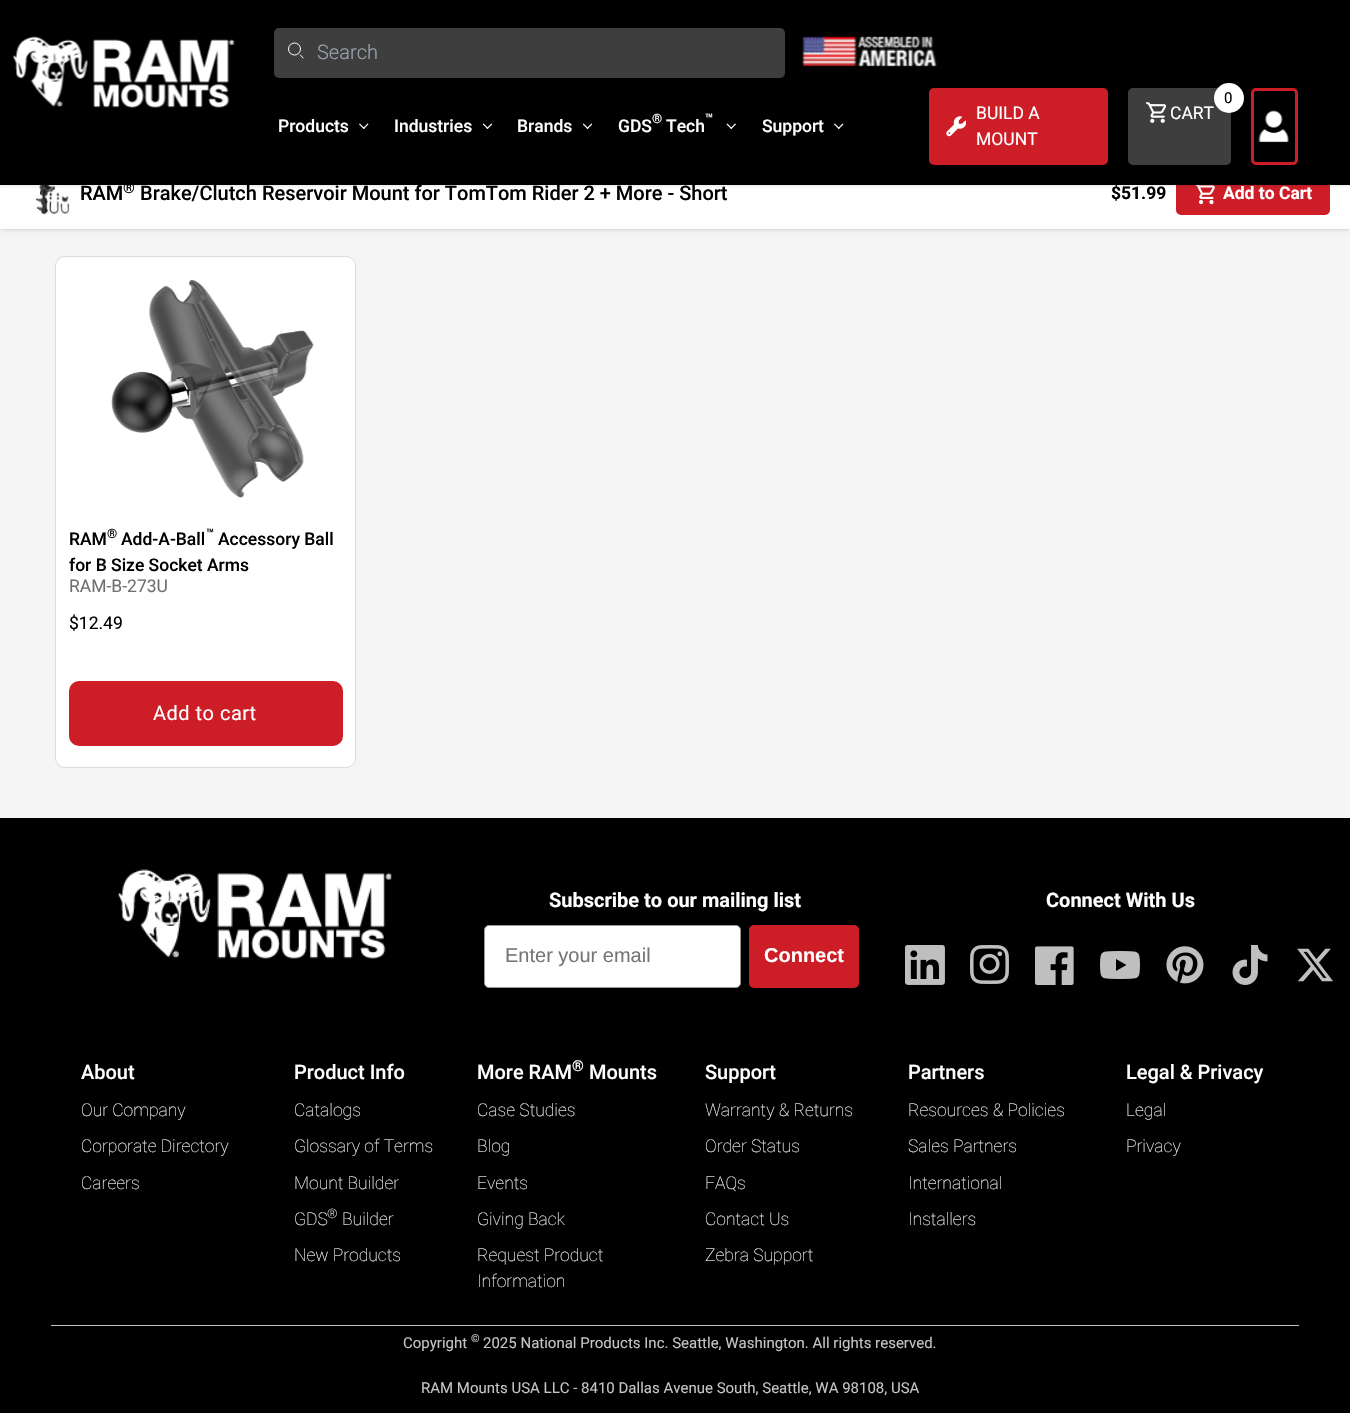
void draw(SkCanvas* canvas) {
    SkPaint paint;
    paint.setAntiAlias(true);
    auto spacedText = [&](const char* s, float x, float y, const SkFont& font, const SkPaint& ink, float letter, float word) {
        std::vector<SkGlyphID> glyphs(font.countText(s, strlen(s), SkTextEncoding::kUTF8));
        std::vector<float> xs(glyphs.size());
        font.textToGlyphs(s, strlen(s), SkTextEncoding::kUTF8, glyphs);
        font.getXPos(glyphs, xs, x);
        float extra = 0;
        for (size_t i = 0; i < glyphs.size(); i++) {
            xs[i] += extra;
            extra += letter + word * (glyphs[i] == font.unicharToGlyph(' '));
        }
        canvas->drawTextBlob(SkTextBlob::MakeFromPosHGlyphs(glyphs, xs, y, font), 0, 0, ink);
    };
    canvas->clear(0xFFF5F5F5);
    paint.setColor(0x1A000000);
    paint.setMaskFilter(SkMaskFilter::MakeBlur(kNormal_SkBlurStyle, 1));
    canvas->drawRect(SkRect::MakeXYWH(1, 161, 1348, 68), paint);
    paint.setMaskFilter(nullptr);
    paint.setMaskFilter(SkMaskFilter::MakeBlur(kNormal_SkBlurStyle, 2));
    canvas->drawRect(SkRect::MakeXYWH(0, 160, 1350, 70), paint);
    paint.setMaskFilter(nullptr);
    paint.setColor(0xFFFFFFFF);
    canvas->drawRect(SkRect::MakeXYWH(0, 185, 1350, 44), paint);
    paint.setColor(0xFFCD1E27);
    canvas->drawRoundRect(SkRect::MakeXYWH(1177.5f, 175.5f, 151, 38), 3.5f, 3.5f, paint);
    paint.setStyle(SkPaint::kStroke_Style);
    paint.setStrokeWidth(3);
    canvas->drawRoundRect(SkRect::MakeXYWH(1177.5f, 175.5f, 151, 38), 3.5f, 3.5f, paint);
    paint.setStyle(SkPaint::kFill_Style);
    paint.setColor(0xFF000000);
    canvas->drawRect(SkRect::MakeXYWH(0, 0, 1350, 185), paint);
    canvas->drawImageRect(SkImages::DeferredFromEncodedData(SkData::MakeFromFileName("img9.png")), SkRect::MakeXYWH(35, 185, 35, 30), SkSamplingOptions());
    canvas->drawImageRect(SkImages::DeferredFromEncodedData(SkData::MakeFromFileName("img10.png")), SkRect::MakeXYWH(1195, 185, 20, 20), SkSamplingOptions());
    canvas->save();
    canvas->clipRect(SkRect::MakeXYWH(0, 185, 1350, 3));
    paint.setColor(0x1A000000);
    paint.setMaskFilter(SkMaskFilter::MakeBlur(kNormal_SkBlurStyle, 2));
    canvas->drawRect(SkRect::MakeXYWH(0, 1, 1350, 185), paint);
    paint.setMaskFilter(nullptr);
    canvas->restore();
    canvas->drawImageRect(SkImages::DeferredFromEncodedData(SkData::MakeFromFileName("img1.png")), SkRect::MakeXYWH(13, 36, 222, 72), SkSamplingOptions());
    paint.setColor(0xFF3E3E3E);
    canvas->drawRoundRect(SkRect::MakeXYWH(274, 28, 511, 50), 5, 5, paint);
    paint.setStyle(SkPaint::kStroke_Style);
    paint.setStrokeWidth(1);
    paint.setColor(0xFFFFFFFF);
    canvas->drawCircle(294.5f, 49, 6, paint);
    paint.setStrokeCap(SkPaint::kRound_Cap);
    canvas->drawPath(SkPathBuilder().moveTo(303, 58).lineTo(300.5f, 55).detach(), paint);
    SkFont font1(fontMgr->matchFamilyStyle("Roboto", SkFontStyle(300, SkFontStyle::kNormal_Width, SkFontStyle::kUpright_Slant)), 20);
    font1.setSubpixel(true);
    paint.setStyle(SkPaint::kFill_Style);
    paint.setColor(0xFF9CA3AF);
    canvas->drawString("Search", 317, 59, font1, paint);
    canvas->drawImageRect(SkImages::DeferredFromEncodedData(SkData::MakeFromFileName("img2.png")), SkRect::MakeXYWH(802, 36, 135, 31), SkSamplingOptions());
    SkFont font2(fontMgr->matchFamilyStyle("Roboto", SkFontStyle(500, SkFontStyle::kNormal_Width, SkFontStyle::kUpright_Slant)), 17.5f);
    font2.setSubpixel(true);
    paint.setColor(0xFFFFFFFF);
    canvas->drawString("Products", 278, 132, font2, paint);
    canvas->drawImageRect(SkImages::DeferredFromEncodedData(SkData::MakeFromFileName("img3.png")), SkRect::MakeXYWH(359, 123, 10, 6), SkSamplingOptions());
    canvas->drawString("Industries", 394, 132, font2, paint);
    canvas->drawImageRect(SkImages::DeferredFromEncodedData(SkData::MakeFromFileName("img4.png")), SkRect::MakeXYWH(483, 123, 10, 6), SkSamplingOptions());
    canvas->drawString("Brands", 517, 132, font2, paint);
    canvas->drawImageRect(SkImages::DeferredFromEncodedData(SkData::MakeFromFileName("img4.png")), SkRect::MakeXYWH(583, 123, 10, 6), SkSamplingOptions());
    SkFont font3(fontMgr->matchFamilyStyle("Roboto", SkFontStyle(500, SkFontStyle::kNormal_Width, SkFontStyle::kUpright_Slant)), 13);
    font3.setSubpixel(true);
    canvas->drawString("®", 652, 123, font3, paint);
    canvas->drawString("™", 705, 123, font3, paint);
    canvas->drawString("GDS", 618, 132, font2, paint);
    canvas->drawString("Tech", 666, 132, font2, paint);
    canvas->drawImageRect(SkImages::DeferredFromEncodedData(SkData::MakeFromFileName("img5.png")), SkRect::MakeXYWH(726, 123, 10, 6), SkSamplingOptions());
    canvas->drawString("Support", 762, 132, font2, paint);
    canvas->drawImageRect(SkImages::DeferredFromEncodedData(SkData::MakeFromFileName("img3.png")), SkRect::MakeXYWH(834, 123, 10, 6), SkSamplingOptions());
    paint.setColor(0xFFCD1E27);
    canvas->drawRoundRect(SkRect::MakeXYWH(930.5f, 89.5f, 176, 74), 3.5f, 3.5f, paint);
    paint.setStyle(SkPaint::kStroke_Style);
    paint.setStrokeWidth(3);
    paint.setStrokeCap(SkPaint::kButt_Cap);
    canvas->drawRoundRect(SkRect::MakeXYWH(930.5f, 89.5f, 176, 74), 3.5f, 3.5f, paint);
    SkFont font4(fontMgr->matchFamilyStyle("Roboto", SkFontStyle::Normal()), 17.5f);
    font4.setSubpixel(true);
    paint.setStyle(SkPaint::kFill_Style);
    paint.setColor(0xFFFFFFFF);
    canvas->drawString("BUILD A", 976, 119, font4, paint);
    canvas->drawImageRect(SkImages::DeferredFromEncodedData(SkData::MakeFromFileName("img6.png")), SkRect::MakeXYWH(946, 116, 20, 21), SkSamplingOptions());
    canvas->drawString("MOUNT", 976, 145, font4, paint);
    paint.setColor(0xFF3E3E3E);
    canvas->drawRoundRect(SkRect::MakeXYWH(1129.5f, 89.5f, 100, 74), 3.5f, 3.5f, paint);
    paint.setStyle(SkPaint::kStroke_Style);
    canvas->drawRoundRect(SkRect::MakeXYWH(1129.5f, 89.5f, 100, 74), 3.5f, 3.5f, paint);
    paint.setStyle(SkPaint::kFill_Style);
    paint.setColor(0xFFFFFFFF);
    canvas->drawCircle(1229, 98, 15, paint);
    SkFont font5(fontMgr->matchFamilyStyle("Roboto", SkFontStyle::Normal()), 15);
    font5.setSubpixel(true);
    paint.setColor(0xFF000000);
    canvas->drawString("0", 1224, 103, font5, paint);
    canvas->drawImageRect(SkImages::DeferredFromEncodedData(SkData::MakeFromFileName("img7.png")), SkRect::MakeXYWH(1146, 102, 21, 21), SkSamplingOptions());
    paint.setColor(0xFFFFFFFF);
    canvas->drawString("CART", 1170, 119, font4, paint);
    paint.setStyle(SkPaint::kStroke_Style);
    paint.setColor(0xFFCD1E27);
    canvas->drawRoundRect(SkRect::MakeXYWH(1252.5f, 89.5f, 44, 74), 3.5f, 3.5f, paint);
    canvas->drawImageRect(SkImages::DeferredFromEncodedData(SkData::MakeFromFileName("img8.png")), SkRect::MakeXYWH(1258, 110, 31, 33), SkSamplingOptions());
    SkFont font6(fontMgr->matchFamilyStyle("Roboto", SkFontStyle(500, SkFontStyle::kNormal_Width, SkFontStyle::kUpright_Slant)), 20);
    font6.setSubpixel(true);
    paint.setStyle(SkPaint::kFill_Style);
    paint.setColor(0xFF000000);
    canvas->drawString("RAM", 80, 200, font6, paint);
    SkFont font7(fontMgr->matchFamilyStyle("Roboto", SkFontStyle(500, SkFontStyle::kNormal_Width, SkFontStyle::kUpright_Slant)), 15);
    font7.setSubpixel(true);
    canvas->drawString("®", 123, 193, font7, paint);
    canvas->drawString("Brake/Clutch Reservoir Mount for TomTom Rider 2 + More - Short", 140, 200, font6, paint);
    SkFont font8(fontMgr->matchFamilyStyle("Roboto", SkFontStyle::Bold()), 17.5f);
    font8.setSubpixel(true);
    canvas->drawString("$51.99", 1111, 199, font8, paint);
    paint.setColor(0xFFFFFFFF);
    canvas->drawString("Add to Cart", 1223, 199, font8, paint);
    canvas->drawRoundRect(SkRect::MakeXYWH(55.5f, 256.5f, 300, 511), 9.5f, 9.5f, paint);
    paint.setStyle(SkPaint::kStroke_Style);
    paint.setStrokeWidth(1);
    paint.setColor(0xFFDCDCDC);
    canvas->drawRoundRect(SkRect::MakeXYWH(55.5f, 256.5f, 300, 511), 9.5f, 9.5f, paint);
    canvas->drawImageRect(SkImages::DeferredFromEncodedData(SkData::MakeFromFileName("img11.png")), SkRect::MakeXYWH(111, 280, 203, 218), SkSamplingOptions());
    paint.setStyle(SkPaint::kFill_Style);
    paint.setColor(0xFF000000);
    canvas->drawString("®", 107, 538, font3, paint);
    canvas->drawString("™", 206, 538, font3, paint);
    canvas->drawString("RAM", 69, 545, font2, paint);
    canvas->drawString("Add-A-Ball", 121, 545, font2, paint);
    canvas->drawString("Accessory Ball", 218, 545, font2, paint);
    canvas->drawString("for B Size Socket Arms", 69, 571, font2, paint);
    paint.setColor(0xFF707070);
    canvas->drawString("RAM-B-273U", 69, 592, font4, paint);
    paint.setColor(0xFF000000);
    canvas->drawString("$12.49", 69, 629, font4, paint);
    paint.setColor(0xFFCD1E27);
    canvas->drawRoundRect(SkRect::MakeXYWH(70.5f, 682.5f, 271, 62), 8.5f, 8.5f, paint);
    paint.setStyle(SkPaint::kStroke_Style);
    paint.setStrokeWidth(3);
    canvas->drawRoundRect(SkRect::MakeXYWH(70.5f, 682.5f, 271, 62), 8.5f, 8.5f, paint);
    SkFont font9(fontMgr->matchFamilyStyle("Roboto", SkFontStyle::Normal()), 20);
    font9.setSubpixel(true);
    paint.setStyle(SkPaint::kFill_Style);
    paint.setColor(0xFFFFFFFF);
    spacedText("Add to cart", 153, 720, font9, paint, 0.5f, 0);
    paint.setColor(0xFF000000);
    canvas->drawRect(SkRect::MakeXYWH(0, 818, 1350, 595), paint);
    canvas->drawImageRect(SkImages::DeferredFromEncodedData(SkData::MakeFromFileName("img12.png")), SkRect::MakeXYWH(118, 869, 274, 90), SkSamplingOptions());
    SkFont font10(fontMgr->matchFamilyStyle("Roboto", SkFontStyle::Bold()), 20);
    font10.setSubpixel(true);
    paint.setColor(0xFFFFFFFF);
    canvas->drawString("Subscribe to our mailing list", 549, 907, font10, paint);
    canvas->drawRoundRect(SkRect::MakeXYWH(484.5f, 925.5f, 256, 62), 4.5f, 4.5f, paint);
    paint.setStyle(SkPaint::kStroke_Style);
    paint.setStrokeWidth(1);
    paint.setColor(0xFF949596);
    canvas->drawRoundRect(SkRect::MakeXYWH(484.5f, 925.5f, 256, 62), 4.5f, 4.5f, paint);
    SkFont font11(fontMgr->matchFamilyStyle("Liberation Sans", SkFontStyle::Normal()), 20);
    font11.setSubpixel(true);
    paint.setStyle(SkPaint::kFill_Style);
    paint.setColor(0xFF767676);
    canvas->drawString("Enter your email", 505, 962, font11, paint);
    paint.setColor(0xFFCD1E27);
    canvas->drawRoundRect(SkRect::MakeXYWH(750.5f, 926.5f, 107, 60), 3.5f, 3.5f, paint);
    paint.setStyle(SkPaint::kStroke_Style);
    paint.setStrokeWidth(3);
    canvas->drawRoundRect(SkRect::MakeXYWH(750.5f, 926.5f, 107, 60), 3.5f, 3.5f, paint);
    SkFont font12(fontMgr->matchFamilyStyle("Liberation Sans", SkFontStyle::Bold()), 20);
    font12.setSubpixel(true);
    paint.setStyle(SkPaint::kFill_Style);
    paint.setColor(0xFFFFFFFF);
    canvas->drawString("Connect", 764, 962, font12, paint);
    canvas->drawString("Connect With Us", 1046, 907, font10, paint);
    canvas->drawImageRect(SkImages::DeferredFromEncodedData(SkData::MakeFromFileName("img13.png")), SkRect::MakeXYWH(905, 945, 40, 40), SkSamplingOptions());
    canvas->drawImageRect(SkImages::DeferredFromEncodedData(SkData::MakeFromFileName("img14.png")), SkRect::MakeXYWH(970, 945, 39, 39), SkSamplingOptions());
    canvas->drawImageRect(SkImages::DeferredFromEncodedData(SkData::MakeFromFileName("img15.png")), SkRect::MakeXYWH(1035, 946, 39, 39), SkSamplingOptions());
    canvas->drawImageRect(SkImages::DeferredFromEncodedData(SkData::MakeFromFileName("img16.png")), SkRect::MakeXYWH(1100, 951, 40, 28), SkSamplingOptions());
    canvas->drawImageRect(SkImages::DeferredFromEncodedData(SkData::MakeFromFileName("img17.png")), SkRect::MakeXYWH(1166, 946, 38, 38), SkSamplingOptions());
    canvas->drawImageRect(SkImages::DeferredFromEncodedData(SkData::MakeFromFileName("img18.png")), SkRect::MakeXYWH(1232, 945, 36, 40), SkSamplingOptions());
    canvas->drawImageRect(SkImages::DeferredFromEncodedData(SkData::MakeFromFileName("img19.png")), SkRect::MakeXYWH(1297, 948, 36, 34), SkSamplingOptions());
    canvas->drawString("About", 81, 1079, font6, paint);
    SkFont font13(fontMgr->matchFamilyStyle("Roboto", SkFontStyle(100, SkFontStyle::kNormal_Width, SkFontStyle::kUpright_Slant)), 17.5f);
    font13.setSubpixel(true);
    canvas->drawString("Our Company", 81, 1116, font13, paint);
    canvas->drawString("Corporate Directory", 81, 1152, font13, paint);
    canvas->drawString("Careers", 81, 1189, font13, paint);
    canvas->drawString("Product Info", 294, 1079, font6, paint);
    canvas->drawString("Catalogs", 294, 1116, font13, paint);
    canvas->drawString("Glossary of Terms", 294, 1152, font13, paint);
    canvas->drawString("Mount Builder", 294, 1189, font13, paint);
    canvas->drawString("GDS", 294, 1225, font13, paint);
    SkFont font14(fontMgr->matchFamilyStyle("Roboto", SkFontStyle(100, SkFontStyle::kNormal_Width, SkFontStyle::kUpright_Slant)), 13);
    font14.setSubpixel(true);
    canvas->drawString("®", 327, 1218, font14, paint);
    canvas->drawString("Builder", 342, 1225, font13, paint);
    canvas->drawString("New Products", 294, 1261, font13, paint);
    canvas->drawString("More RAM", 477, 1079, font6, paint);
    canvas->drawString("®", 572, 1071, font7, paint);
    canvas->drawString("Mounts", 589, 1079, font6, paint);
    canvas->drawString("Case Studies", 477, 1116, font13, paint);
    canvas->drawString("Blog", 477, 1152, font13, paint);
    canvas->drawString("Events", 477, 1189, font13, paint);
    canvas->drawString("Giving Back", 477, 1225, font13, paint);
    canvas->drawString("Request Product", 477, 1261, font13, paint);
    canvas->drawString("Information", 477, 1287, font13, paint);
    canvas->drawString("Support", 705, 1079, font6, paint);
    canvas->drawString("Warranty & Returns", 705, 1116, font13, paint);
    canvas->drawString("Order Status", 705, 1152, font13, paint);
    canvas->drawString("FAQs", 705, 1189, font13, paint);
    canvas->drawString("Contact Us", 705, 1225, font13, paint);
    canvas->drawString("Zebra Support", 705, 1261, font13, paint);
    canvas->drawString("Partners", 908, 1079, font6, paint);
    canvas->drawString("Resources & Policies", 908, 1116, font13, paint);
    canvas->drawString("Sales Partners", 908, 1152, font13, paint);
    canvas->drawString("International", 908, 1189, font13, paint);
    canvas->drawString("Installers", 908, 1225, font13, paint);
    canvas->drawString("Legal & Privacy", 1126, 1079, font6, paint);
    canvas->drawString("Legal", 1126, 1116, font13, paint);
    canvas->drawString("Privacy", 1126, 1152, font13, paint);
    paint.setColor(0xFFC5C5C5);
    canvas->drawRect(SkRect::MakeXYWH(51, 1325, 1248, 1), paint);
    canvas->drawString("Copyright", 403, 1348, font5, paint);
    SkFont font15(fontMgr->matchFamilyStyle("Roboto", SkFontStyle::Normal()), 11);
    font15.setSubpixel(true);
    canvas->drawString("©", 471, 1342, font15, paint);
    canvas->drawString("2025 National Products Inc. Seattle, Washington. All rights reserved.", 483, 1348, font5, paint);
    canvas->drawString("RAM Mounts USA LLC - 8410 Dallas Avenue South, Seattle, WA 98108, USA", 421, 1393, font5, paint);
}
